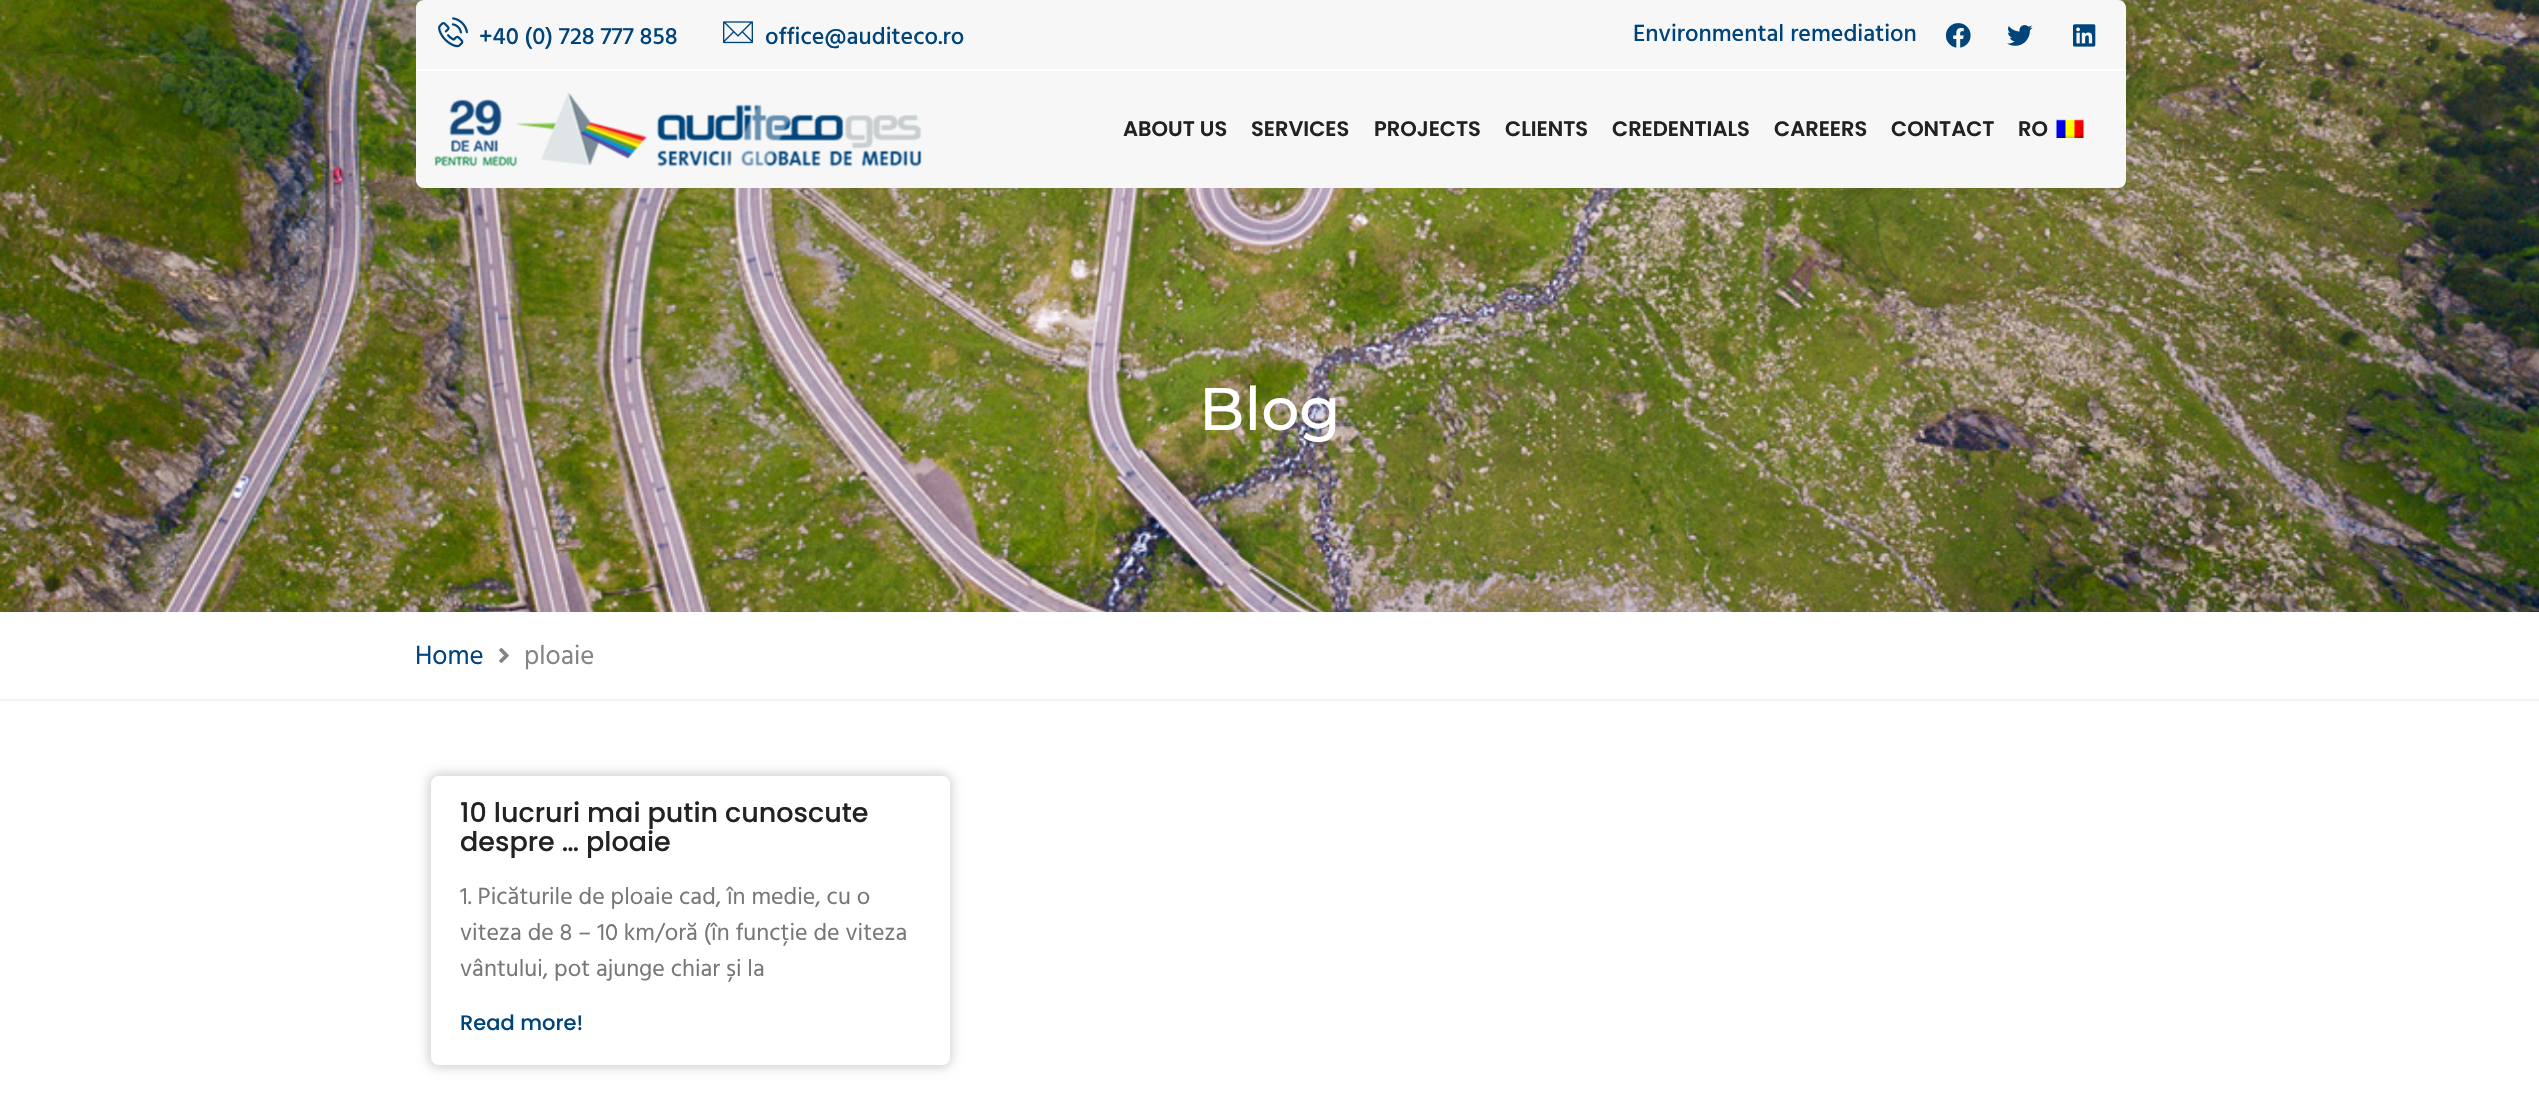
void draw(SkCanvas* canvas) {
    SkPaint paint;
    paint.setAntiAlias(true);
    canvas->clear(0xFFFFFFFF);
    canvas->drawImageRect(SkImages::DeferredFromEncodedData(SkData::MakeFromFileName("img8.png")), SkRect::MakeXYWH(0, 0, 2539, 612), SkSamplingOptions());
    paint.setColor(0xFFF7F7F7);
    canvas->drawPath(SkPathBuilder().moveTo(424, 0).lineTo(1271, 0).lineTo(1271, 69).lineTo(416, 69).lineTo(416, 8).cubicTo(416, 3.5f, 419.5f, 0, 424, 0).close().detach(), paint);
    paint.setColor(0xFFFFFFFF);
    canvas->drawRect(SkRect::MakeXYWH(416, 69, 1710, 2), paint);
    canvas->drawImageRect(SkImages::DeferredFromEncodedData(SkData::MakeFromFileName("img1.png")), SkRect::MakeXYWH(438, 17, 30, 31), SkSamplingOptions());
    SkFont font1(fontMgr->matchFamilyStyle("Hind", SkFontStyle(500, SkFontStyle::kNormal_Width, SkFontStyle::kUpright_Slant)), 24);
    font1.setSubpixel(true);
    paint.setColor(0xFF00447C);
    canvas->drawString("+40 (0) 728 777 858", 479, 44, font1, paint);
    canvas->drawImageRect(SkImages::DeferredFromEncodedData(SkData::MakeFromFileName("img2.png")), SkRect::MakeXYWH(723, 21, 30, 23), SkSamplingOptions());
    canvas->drawString("office@auditeco.ro", 765, 44, font1, paint);
    paint.setColor(0xFFF7F7F7);
    canvas->drawPath(SkPathBuilder().moveTo(1271, 0).lineTo(2118, 0).cubicTo(2122.5f, 0, 2126, 3.5f, 2126, 8).lineTo(2126, 69).lineTo(1271, 69).close().detach(), paint);
    paint.setColor(0xFF00447C);
    canvas->drawString("Environmental remediation", 1633, 41, font1, paint);
    canvas->drawImageRect(SkImages::DeferredFromEncodedData(SkData::MakeFromFileName("img3.png")), SkRect::MakeXYWH(1945, 23, 26, 25), SkSamplingOptions());
    canvas->drawImageRect(SkImages::DeferredFromEncodedData(SkData::MakeFromFileName("img4.png")), SkRect::MakeXYWH(2007, 25, 26, 21), SkSamplingOptions());
    canvas->drawImageRect(SkImages::DeferredFromEncodedData(SkData::MakeFromFileName("img5.png")), SkRect::MakeXYWH(2073, 24, 23, 23), SkSamplingOptions());
    paint.setColor(0xFFF7F7F7);
    canvas->drawPath(SkPathBuilder().moveTo(416, 71).lineTo(1014, 71).lineTo(1014, 188).lineTo(424, 188).cubicTo(419.5f, 188, 416, 184.5f, 416, 180).close().detach(), paint);
    canvas->drawImageRect(SkImages::DeferredFromEncodedData(SkData::MakeFromFileName("img6.png")), SkRect::MakeXYWH(434, 92, 488, 75), SkSamplingOptions());
    canvas->drawPath(SkPathBuilder().moveTo(1014, 71).lineTo(2126, 71).lineTo(2126, 180).cubicTo(2126, 184.5f, 2122.5f, 188, 2118, 188).lineTo(1014, 188).close().detach(), paint);
    SkFont font2(fontMgr->matchFamilyStyle("Poppins", SkFontStyle(600, SkFontStyle::kNormal_Width, SkFontStyle::kUpright_Slant)), 21);
    font2.setSubpixel(true);
    paint.setColor(0xFF222222);
    canvas->drawString("ABOUT US", 1123, 136, font2, paint);
    canvas->drawString("SERVICES", 1251, 136, font2, paint);
    canvas->drawString("PROJECTS", 1374, 136, font2, paint);
    canvas->drawString("CLIENTS", 1505, 136, font2, paint);
    canvas->drawString("CREDENTIALS", 1612, 136, font2, paint);
    canvas->drawString("CAREERS", 1774, 136, font2, paint);
    canvas->drawString("CONTACT", 1891, 136, font2, paint);
    canvas->drawString("RO", 2018, 136, font2, paint);
    canvas->drawImageRect(SkImages::DeferredFromEncodedData(SkData::MakeFromFileName("img7.png")), SkRect::MakeXYWH(2056, 119, 28, 19), SkSamplingOptions());
    SkFont font3(fontMgr->matchFamilyStyle("Montserrat", SkFontStyle(500, SkFontStyle::kNormal_Width, SkFontStyle::kUpright_Slant)), 60);
    font3.setSubpixel(true);
    paint.setColor(0xFFFFFFFF);
    canvas->drawString("Blog", 1199, 430, font3, paint);
    paint.setColor(0xFFF4F4F4);
    canvas->drawRect(SkRect::MakeXYWH(0, 699, 2539, 2), paint);
    SkFont font4(fontMgr->matchFamilyStyle("Hind", SkFontStyle::Normal()), 27);
    font4.setSubpixel(true);
    paint.setColor(0xFF00447C);
    canvas->drawString("Home", 415, 664, font4, paint);
    canvas->drawImageRect(SkImages::DeferredFromEncodedData(SkData::MakeFromFileName("img9.png")), SkRect::MakeXYWH(499, 648, 10, 15), SkSamplingOptions());
    paint.setColor(0xFF848484);
    canvas->drawString("ploaie", 524, 664, font4, paint);
    canvas->save();
    canvas->clipPath(SkPathBuilder(SkPathFillType::kEvenOdd).moveTo(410, 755).lineTo(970, 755).lineTo(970, 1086).lineTo(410, 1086).close().moveTo(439, 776).lineTo(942, 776).cubicTo(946.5f, 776, 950, 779.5f, 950, 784).lineTo(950, 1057).cubicTo(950, 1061.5f, 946.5f, 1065, 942, 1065).lineTo(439, 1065).cubicTo(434.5f, 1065, 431, 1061.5f, 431, 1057).lineTo(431, 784).cubicTo(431, 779.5f, 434.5f, 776, 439, 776).close().detach(), true);
    paint.setColor(0x33000000);
    paint.setMaskFilter(SkMaskFilter::MakeBlur(kNormal_SkBlurStyle, 6));
    canvas->drawRoundRect(SkRect::MakeXYWH(429, 774, 522, 293), 9, 9, paint);
    paint.setMaskFilter(nullptr);
    canvas->restore();
    SkFont font5(fontMgr->matchFamilyStyle("Poppins", SkFontStyle(500, SkFontStyle::kNormal_Width, SkFontStyle::kUpright_Slant)), 27);
    font5.setSubpixel(true);
    paint.setColor(0xFF222222);
    canvas->drawString("10 lucruri mai putin cunoscute", 460, 822, font5, paint);
    canvas->drawString("despre … ploaie", 460, 851, font5, paint);
    SkFont font6(fontMgr->matchFamilyStyle("Hind", SkFontStyle::Normal()), 24);
    font6.setSubpixel(true);
    paint.setColor(0xFF777777);
    canvas->drawString("1. Picăturile de ploaie cad, în medie, cu o", 460, 904, font6, paint);
    canvas->drawString("viteza de 8 – 10 km/oră (în funcție de viteza", 460, 940, font6, paint);
    canvas->drawString("vântului, pot ajunge chiar și la", 460, 976, font6, paint);
    SkFont font7(fontMgr->matchFamilyStyle("Poppins", SkFontStyle(500, SkFontStyle::kNormal_Width, SkFontStyle::kUpright_Slant)), 21);
    font7.setSubpixel(true);
    paint.setColor(0xFF00447C);
    canvas->drawString("Read more!", 460, 1030, font7, paint);
}
